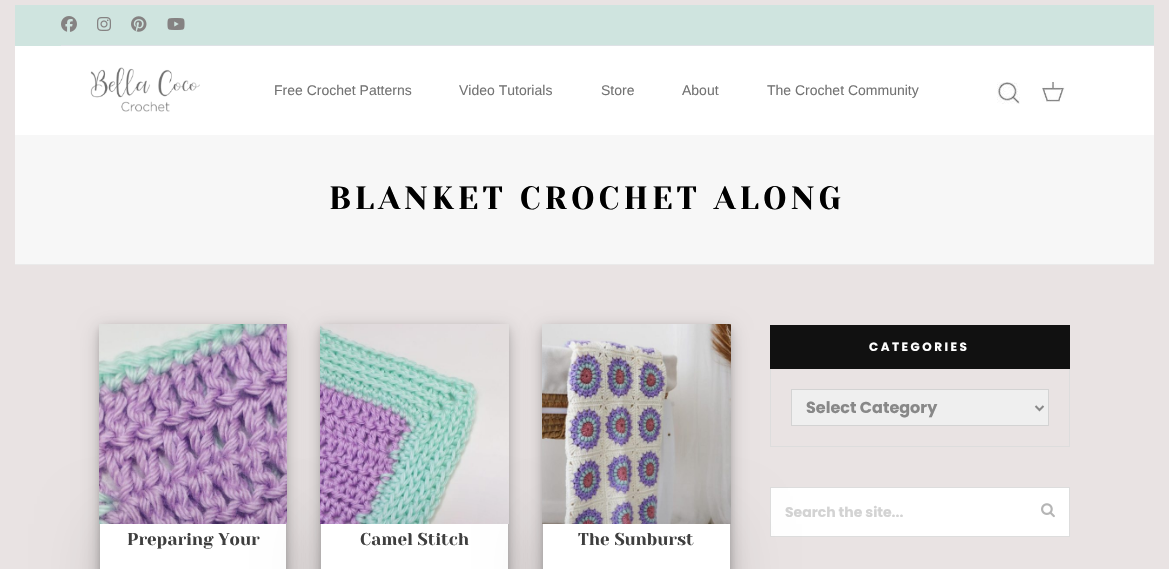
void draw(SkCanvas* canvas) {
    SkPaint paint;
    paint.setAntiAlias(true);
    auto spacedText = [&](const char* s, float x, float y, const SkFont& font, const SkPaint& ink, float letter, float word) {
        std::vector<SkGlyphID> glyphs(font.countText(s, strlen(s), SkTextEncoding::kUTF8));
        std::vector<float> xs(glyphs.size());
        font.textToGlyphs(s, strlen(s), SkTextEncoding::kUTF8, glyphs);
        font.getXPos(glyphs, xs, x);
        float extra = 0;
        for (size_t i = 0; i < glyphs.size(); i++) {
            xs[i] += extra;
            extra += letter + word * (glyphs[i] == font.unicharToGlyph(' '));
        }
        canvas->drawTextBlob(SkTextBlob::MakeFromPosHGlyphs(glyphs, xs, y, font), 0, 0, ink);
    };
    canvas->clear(0xFFE9E3E3);
    paint.setColor(0xFFCFE4DF);
    canvas->drawRect(SkRect::MakeXYWH(15, 5, 1139, 41), paint);
    paint.setColor(0xFFDEE2E6);
    canvas->drawRect(SkRect::MakeXYWH(61, 45, 1093, 1), paint);
    canvas->drawImageRect(SkImages::DeferredFromEncodedData(SkData::MakeFromFileName("img1.png")), SkRect::MakeXYWH(61, 16, 16, 16), SkSamplingOptions());
    canvas->drawImageRect(SkImages::DeferredFromEncodedData(SkData::MakeFromFileName("img2.png")), SkRect::MakeXYWH(97, 17, 14, 14), SkSamplingOptions());
    canvas->drawImageRect(SkImages::DeferredFromEncodedData(SkData::MakeFromFileName("img3.png")), SkRect::MakeXYWH(131, 16, 16, 16), SkSamplingOptions());
    canvas->drawImageRect(SkImages::DeferredFromEncodedData(SkData::MakeFromFileName("img4.png")), SkRect::MakeXYWH(167, 18, 18, 12), SkSamplingOptions());
    paint.setColor(0xFFFFFFFF);
    canvas->drawRect(SkRect::MakeXYWH(15, 46, 1139, 89), paint);
    canvas->drawImageRect(SkImages::DeferredFromEncodedData(SkData::MakeFromFileName("img5.png")), SkRect::MakeXYWH(90, 67, 110, 45), SkSamplingOptions());
    SkFont font1(fontMgr->matchFamilyStyle("Liberation Sans", SkFontStyle::Normal()), 14);
    font1.setSubpixel(true);
    paint.setColor(0xFF737373);
    canvas->drawString("Free Crochet Patterns", 274, 95, font1, paint);
    canvas->drawString("Video Tutorials", 459, 95, font1, paint);
    canvas->drawString("Store", 601, 95, font1, paint);
    canvas->drawString("About", 682, 95, font1, paint);
    canvas->drawString("The Crochet Community", 767, 95, font1, paint);
    canvas->drawImageRect(SkImages::DeferredFromEncodedData(SkData::MakeFromFileName("img6.png")), SkRect::MakeXYWH(997, 82, 23, 22), SkSamplingOptions());
    canvas->drawImageRect(SkImages::DeferredFromEncodedData(SkData::MakeFromFileName("img7.png")), SkRect::MakeXYWH(1042, 82, 23, 20), SkSamplingOptions());
    paint.setColor(0xFFF7F7F7);
    canvas->drawRect(SkRect::MakeXYWH(15, 135, 1139, 129), paint);
    paint.setColor(0xFFEAEAEA);
    canvas->drawRect(SkRect::MakeXYWH(15, 264, 1139, 1), paint);
    SkFont font2(fontMgr->matchFamilyStyle("Yeseva One", SkFontStyle::Normal()), 32);
    font2.setSubpixel(true);
    paint.setColor(0xFF000000);
    spacedText("BLANKET CROCHET ALONG", 329, 209, font2, paint, 4, 0);
    paint.setStyle(SkPaint::kStroke_Style);
    paint.setStrokeWidth(1);
    paint.setColor(0xFFDDDDDD);
    canvas->drawRect(SkRect::MakeXYWH(770.5f, 325.5f, 299, 121), paint);
    paint.setStyle(SkPaint::kFill_Style);
    paint.setColor(0xFF111111);
    canvas->drawRect(SkRect::MakeXYWH(770, 325, 300, 44), paint);
    SkFont font3(fontMgr->matchFamilyStyle("Poppins", SkFontStyle::Bold()), 12);
    font3.setSubpixel(true);
    paint.setColor(0xFFFFFFFF);
    spacedText("CATEGORIES", 869, 351, font3, paint, 2.5f, 0);
    paint.setColor(0xFFEFEFEF);
    canvas->drawRect(SkRect::MakeXYWH(791.5f, 389.5f, 257, 36), paint);
    paint.setStyle(SkPaint::kStroke_Style);
    paint.setColor(0xFFD3D3D3);
    canvas->drawRect(SkRect::MakeXYWH(791.5f, 389.5f, 257, 36), paint);
    paint.setStrokeWidth(2);
    paint.setColor(0xFF888888);
    canvas->drawPath(SkPathBuilder().moveTo(1035.5f, 406).lineTo(1039.5f, 410).lineTo(1043.5f, 406).detach(), paint);
    SkFont font4(fontMgr->matchFamilyStyle("Poppins", SkFontStyle::Bold()), 16);
    font4.setSubpixel(true);
    paint.setStyle(SkPaint::kFill_Style);
    canvas->drawString("Select Category", 806, 413, font4, paint);
    paint.setColor(0xFFFFFFFF);
    canvas->drawRect(SkRect::MakeXYWH(770.5f, 487.5f, 299, 49), paint);
    paint.setStyle(SkPaint::kStroke_Style);
    paint.setStrokeWidth(1);
    paint.setColor(0xFFDDDDDD);
    canvas->drawRect(SkRect::MakeXYWH(770.5f, 487.5f, 299, 49), paint);
    SkFont font5(fontMgr->matchFamilyStyle("Poppins", SkFontStyle::Bold()), 14);
    font5.setSubpixel(true);
    paint.setStyle(SkPaint::kFill_Style);
    paint.setColor(0xFFD3D3D3);
    canvas->drawString("Search the site...", 785, 517, font5, paint);
    canvas->drawImageRect(SkImages::DeferredFromEncodedData(SkData::MakeFromFileName("img8.png")), SkRect::MakeXYWH(1041, 503, 14, 15), SkSamplingOptions());
    paint.setColor(0x30000000);
    paint.setMaskFilter(SkMaskFilter::MakeBlur(kNormal_SkBlurStyle, 10));
    canvas->drawRect(SkRect::MakeXYWH(100, 330, 186, 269), paint);
    paint.setMaskFilter(nullptr);
    paint.setColor(0x33000000);
    paint.setMaskFilter(SkMaskFilter::MakeBlur(kNormal_SkBlurStyle, 4));
    canvas->drawRect(SkRect::MakeXYWH(100, 328, 186, 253), paint);
    paint.setMaskFilter(nullptr);
    canvas->drawImageRect(SkImages::DeferredFromEncodedData(SkData::MakeFromFileName("img9.png")), SkRect::MakeXYWH(99, 324, 188, 200), SkSamplingOptions());
    paint.setColor(0x30000000);
    paint.setMaskFilter(SkMaskFilter::MakeBlur(kNormal_SkBlurStyle, 10));
    canvas->drawRect(SkRect::MakeXYWH(321, 330, 187, 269), paint);
    paint.setMaskFilter(nullptr);
    paint.setColor(0x33000000);
    paint.setMaskFilter(SkMaskFilter::MakeBlur(kNormal_SkBlurStyle, 4));
    canvas->drawRect(SkRect::MakeXYWH(321, 328, 187, 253), paint);
    paint.setMaskFilter(nullptr);
    canvas->drawImageRect(SkImages::DeferredFromEncodedData(SkData::MakeFromFileName("img10.png")), SkRect::MakeXYWH(320, 324, 189, 200), SkSamplingOptions());
    paint.setColor(0x1C000000);
    paint.setMaskFilter(SkMaskFilter::MakeBlur(kNormal_SkBlurStyle, 30));
    canvas->drawRect(SkRect::MakeXYWH(100, 524, 186, 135), paint);
    paint.setMaskFilter(nullptr);
    paint.setColor(0xFFFFFFFF);
    canvas->drawRect(SkRect::MakeXYWH(100, 524, 186, 45), paint);
    SkFont font6(fontMgr->matchFamilyStyle("Yeseva One", SkFontStyle::Normal()), 17);
    font6.setSubpixel(true);
    paint.setColor(0xFF3F3F3F);
    canvas->drawString("Preparing Your", 127, 545, font6, paint);
    paint.setColor(0x30000000);
    paint.setMaskFilter(SkMaskFilter::MakeBlur(kNormal_SkBlurStyle, 10));
    canvas->drawRect(SkRect::MakeXYWH(543, 330, 187, 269), paint);
    paint.setMaskFilter(nullptr);
    paint.setColor(0x33000000);
    paint.setMaskFilter(SkMaskFilter::MakeBlur(kNormal_SkBlurStyle, 4));
    canvas->drawRect(SkRect::MakeXYWH(543, 328, 187, 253), paint);
    paint.setMaskFilter(nullptr);
    canvas->drawImageRect(SkImages::DeferredFromEncodedData(SkData::MakeFromFileName("img11.png")), SkRect::MakeXYWH(542, 324, 189, 200), SkSamplingOptions());
    paint.setColor(0x1C000000);
    paint.setMaskFilter(SkMaskFilter::MakeBlur(kNormal_SkBlurStyle, 30));
    canvas->drawRect(SkRect::MakeXYWH(321, 524, 187, 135), paint);
    paint.setMaskFilter(nullptr);
    paint.setColor(0xFFFFFFFF);
    canvas->drawRect(SkRect::MakeXYWH(321, 524, 187, 45), paint);
    paint.setColor(0xFF3F3F3F);
    canvas->drawString("Camel Stitch", 360, 545, font6, paint);
    paint.setColor(0x1C000000);
    paint.setMaskFilter(SkMaskFilter::MakeBlur(kNormal_SkBlurStyle, 30));
    canvas->drawRect(SkRect::MakeXYWH(543, 524, 187, 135), paint);
    paint.setMaskFilter(nullptr);
    paint.setColor(0xFFFFFFFF);
    canvas->drawRect(SkRect::MakeXYWH(543, 524, 187, 45), paint);
    paint.setColor(0xFF3F3F3F);
    canvas->drawString("The Sunburst", 578, 545, font6, paint);
}
